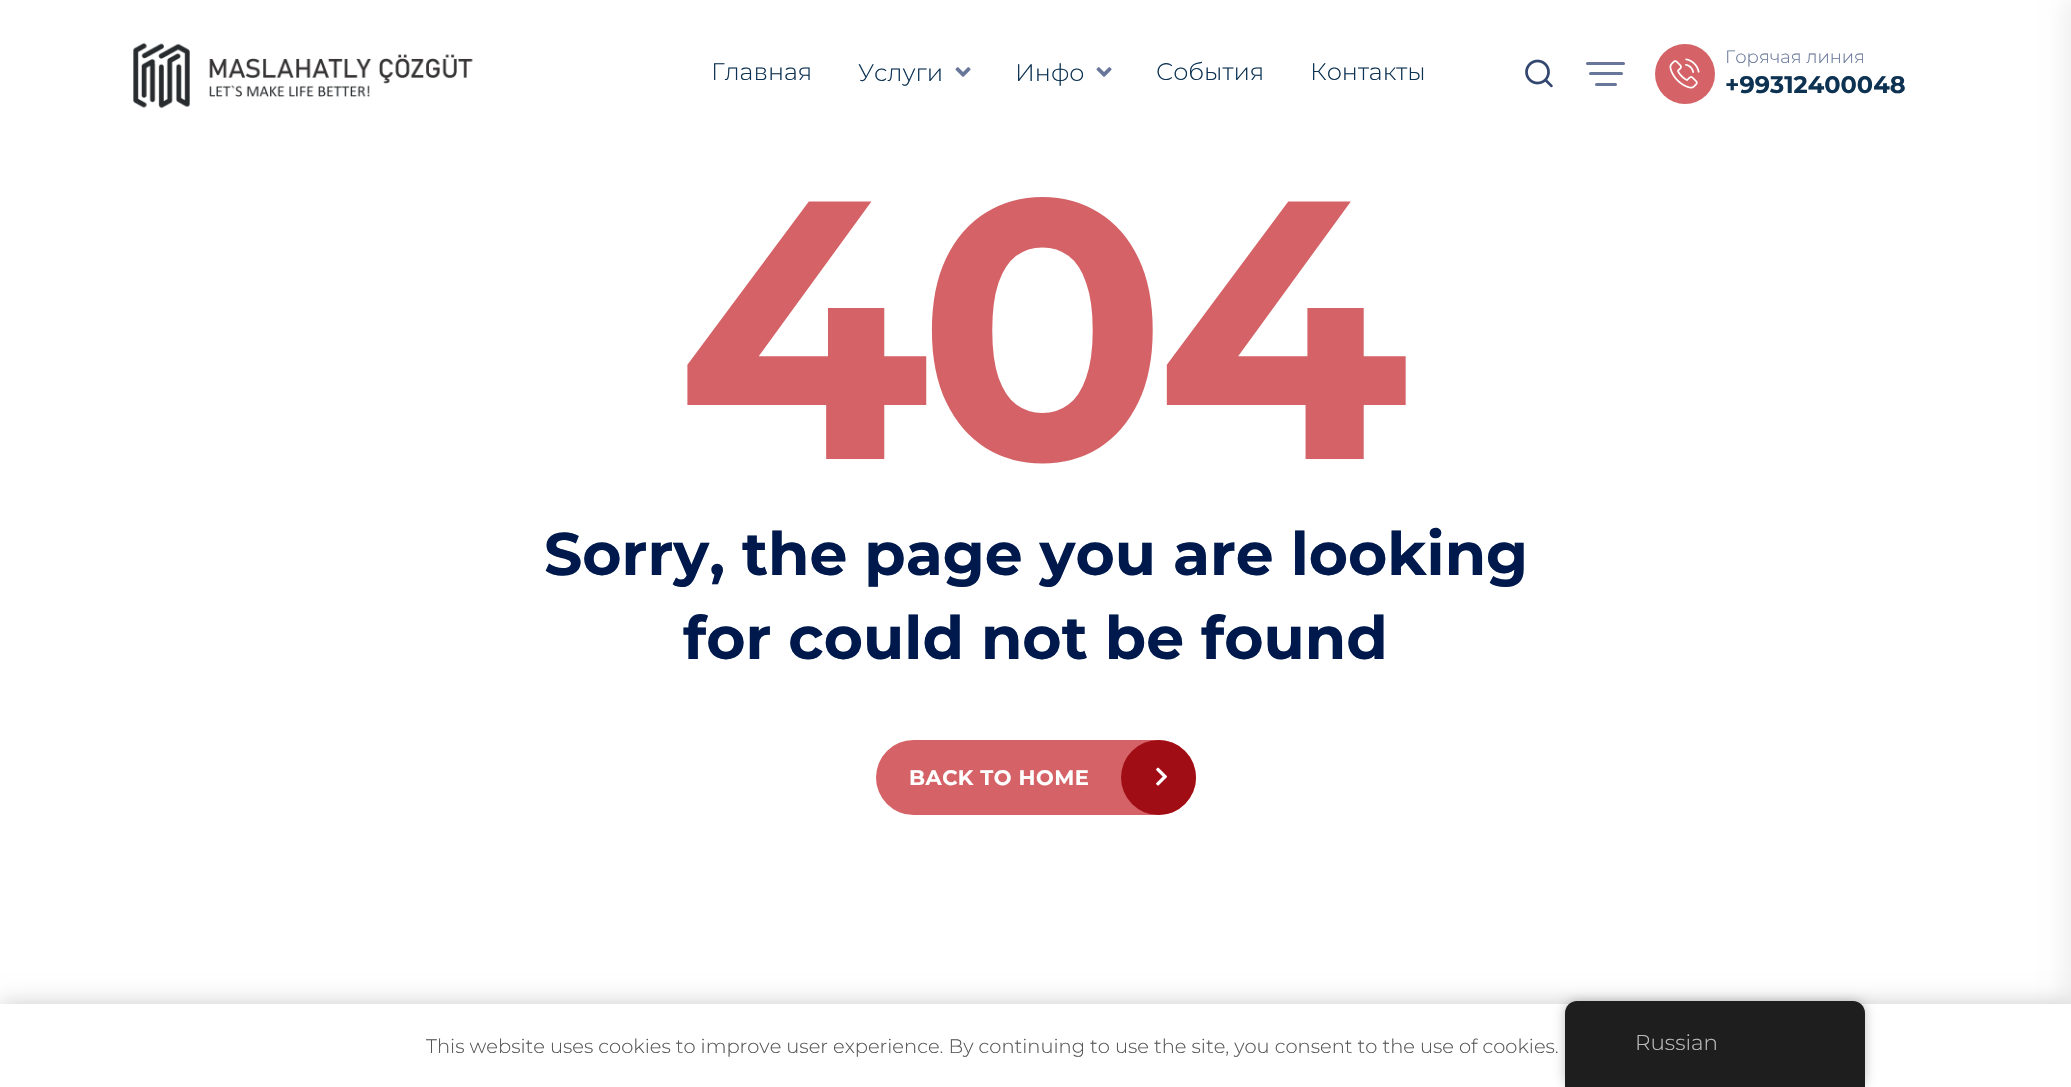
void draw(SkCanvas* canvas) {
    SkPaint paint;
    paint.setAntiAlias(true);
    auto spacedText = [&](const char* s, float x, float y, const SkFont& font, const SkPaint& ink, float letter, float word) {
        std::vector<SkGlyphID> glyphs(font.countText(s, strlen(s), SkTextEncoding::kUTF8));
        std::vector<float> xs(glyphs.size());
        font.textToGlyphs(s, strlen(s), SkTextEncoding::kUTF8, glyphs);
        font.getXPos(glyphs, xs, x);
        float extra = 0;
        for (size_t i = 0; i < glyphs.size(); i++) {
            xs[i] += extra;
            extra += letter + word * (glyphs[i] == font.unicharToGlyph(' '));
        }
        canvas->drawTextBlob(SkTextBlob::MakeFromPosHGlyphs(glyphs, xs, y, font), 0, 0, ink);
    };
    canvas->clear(0xFFFFFFFF);
    canvas->drawImageRect(SkImages::DeferredFromEncodedData(SkData::MakeFromFileName("img1.png")), SkRect::MakeXYWH(133, 42, 340, 67), SkSamplingOptions());
    SkFont font1(fontMgr->matchFamilyStyle("Montserrat", SkFontStyle(300, SkFontStyle::kNormal_Width, SkFontStyle::kUpright_Slant)), 24);
    font1.setSubpixel(true);
    paint.setColor(0xFF0D3252);
    canvas->drawString("Главная", 711, 80, font1, paint);
    canvas->drawString("Услуги", 858, 81, font1, paint);
    canvas->drawImageRect(SkImages::DeferredFromEncodedData(SkData::MakeFromFileName("img2.png")), SkRect::MakeXYWH(955, 67, 16, 10), SkSamplingOptions());
    canvas->drawString("Инфо", 1015, 81, font1, paint);
    canvas->drawImageRect(SkImages::DeferredFromEncodedData(SkData::MakeFromFileName("img2.png")), SkRect::MakeXYWH(1096, 67, 16, 10), SkSamplingOptions());
    canvas->drawString("События", 1156, 80, font1, paint);
    canvas->drawString("Контакты", 1310, 80, font1, paint);
    canvas->drawImageRect(SkImages::DeferredFromEncodedData(SkData::MakeFromFileName("img3.png")), SkRect::MakeXYWH(1525, 59, 28, 29), SkSamplingOptions());
    paint.setColor(0xFF687799);
    canvas->drawRoundRect(SkRect::MakeXYWH(1586, 62, 39, 3), 1.5f, 1.5f, paint);
    canvas->drawRoundRect(SkRect::MakeXYWH(1589, 72, 34, 3), 1.5f, 1.5f, paint);
    canvas->drawRoundRect(SkRect::MakeXYWH(1595, 83, 22, 3), 1.5f, 1.5f, paint);
    paint.setColor(0xFFD46266);
    canvas->drawCircle(1685, 74, 30, paint);
    canvas->drawImageRect(SkImages::DeferredFromEncodedData(SkData::MakeFromFileName("img4.png")), SkRect::MakeXYWH(1669, 58, 31, 31), SkSamplingOptions());
    SkFont font2(fontMgr->matchFamilyStyle("Montserrat", SkFontStyle(300, SkFontStyle::kNormal_Width, SkFontStyle::kUpright_Slant)), 18);
    font2.setSubpixel(true);
    paint.setColor(0xFF687799);
    canvas->drawString("Горячая линия", 1725, 63, font2, paint);
    SkFont font3(fontMgr->matchFamilyStyle("Montserrat", SkFontStyle::Bold()), 24);
    font3.setSubpixel(true);
    paint.setColor(0xFF0D3252);
    canvas->drawString("+99312400048", 1725, 93, font3, paint);
    paint.setColor(0x0F000000);
    paint.setMaskFilter(SkMaskFilter::MakeBlur(kNormal_SkBlurStyle, 10.5f));
    canvas->drawRect(SkRect::MakeXYWH(2063, 0, 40, 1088), paint);
    paint.setMaskFilter(nullptr);
    SkFont font4(fontMgr->matchFamilyStyle("Montserrat", SkFontStyle::Bold()), 368);
    font4.setSubpixel(true);
    paint.setColor(0xFFD46266);
    spacedText("404", 676, 459, font4, paint, -12, 0);
    SkFont font5(fontMgr->matchFamilyStyle("Montserrat", SkFontStyle::Bold()), 60);
    font5.setSubpixel(true);
    paint.setColor(0xFF00194C);
    canvas->drawString("Sorry, the page you are looking", 544, 575, font5, paint);
    canvas->drawString("for could not be found", 683, 659, font5, paint);
    paint.setColor(0xFFD46266);
    canvas->drawRoundRect(SkRect::MakeXYWH(876, 740, 320, 75), 37.5f, 37.5f, paint);
    paint.setColor(0xFFA10D15);
    canvas->drawCircle(1158.5f, 777.5f, 37.5f, paint);
    SkFont font6(fontMgr->matchFamilyStyle("Montserrat", SkFontStyle::Bold()), 21);
    font6.setSubpixel(true);
    paint.setColor(0xFFFFFFFF);
    spacedText("BACK TO HOME", 909, 785, font6, paint, 0.5f, 0);
    canvas->drawImageRect(SkImages::DeferredFromEncodedData(SkData::MakeFromFileName("img5.png")), SkRect::MakeXYWH(1156, 767, 11, 19), SkSamplingOptions());
    paint.setColor(0x33000000);
    paint.setMaskFilter(SkMaskFilter::MakeBlur(kNormal_SkBlurStyle, 11));
    canvas->drawRect(SkRect::MakeXYWH(0, 1004, 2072, 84), paint);
    paint.setMaskFilter(nullptr);
    paint.setColor(0xFFFFFFFF);
    canvas->drawRect(SkRect::MakeXYWH(0, 1004, 2071, 83), paint);
    SkFont font7(fontMgr->matchFamilyStyle("Montserrat", SkFontStyle(300, SkFontStyle::kNormal_Width, SkFontStyle::kUpright_Slant)), 19.5f);
    font7.setSubpixel(true);
    paint.setColor(0xFF555555);
    canvas->drawString("This website uses cookies to improve user experience. By continuing to use the site, you consent to the use of cookies.", 426, 1053, font7, paint);
    paint.setColor(0x40000000);
    paint.setMaskFilter(SkMaskFilter::MakeBlur(kNormal_SkBlurStyle, 6));
    canvas->drawRoundRect(SkRect::MakeXYWH(1565, 1001, 300, 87), 12, 12, paint);
    paint.setMaskFilter(nullptr);
    paint.setColor(0xFF1E1E1E);
    canvas->drawPath(SkPathBuilder().moveTo(1577, 1001).lineTo(1853, 1001).cubicTo(1859.5f, 1001, 1865, 1006.5f, 1865, 1013).lineTo(1865, 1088).lineTo(1565, 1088).lineTo(1565, 1013).cubicTo(1565, 1006.5f, 1570.5f, 1001, 1577, 1001).close().detach(), paint);
    SkFont font8(fontMgr->matchFamilyStyle("Montserrat", SkFontStyle(300, SkFontStyle::kNormal_Width, SkFontStyle::kUpright_Slant)), 21.5f);
    font8.setSubpixel(true);
    paint.setColor(0xFFBDBDBD);
    canvas->drawString("Russian", 1635, 1050, font8, paint);
}
